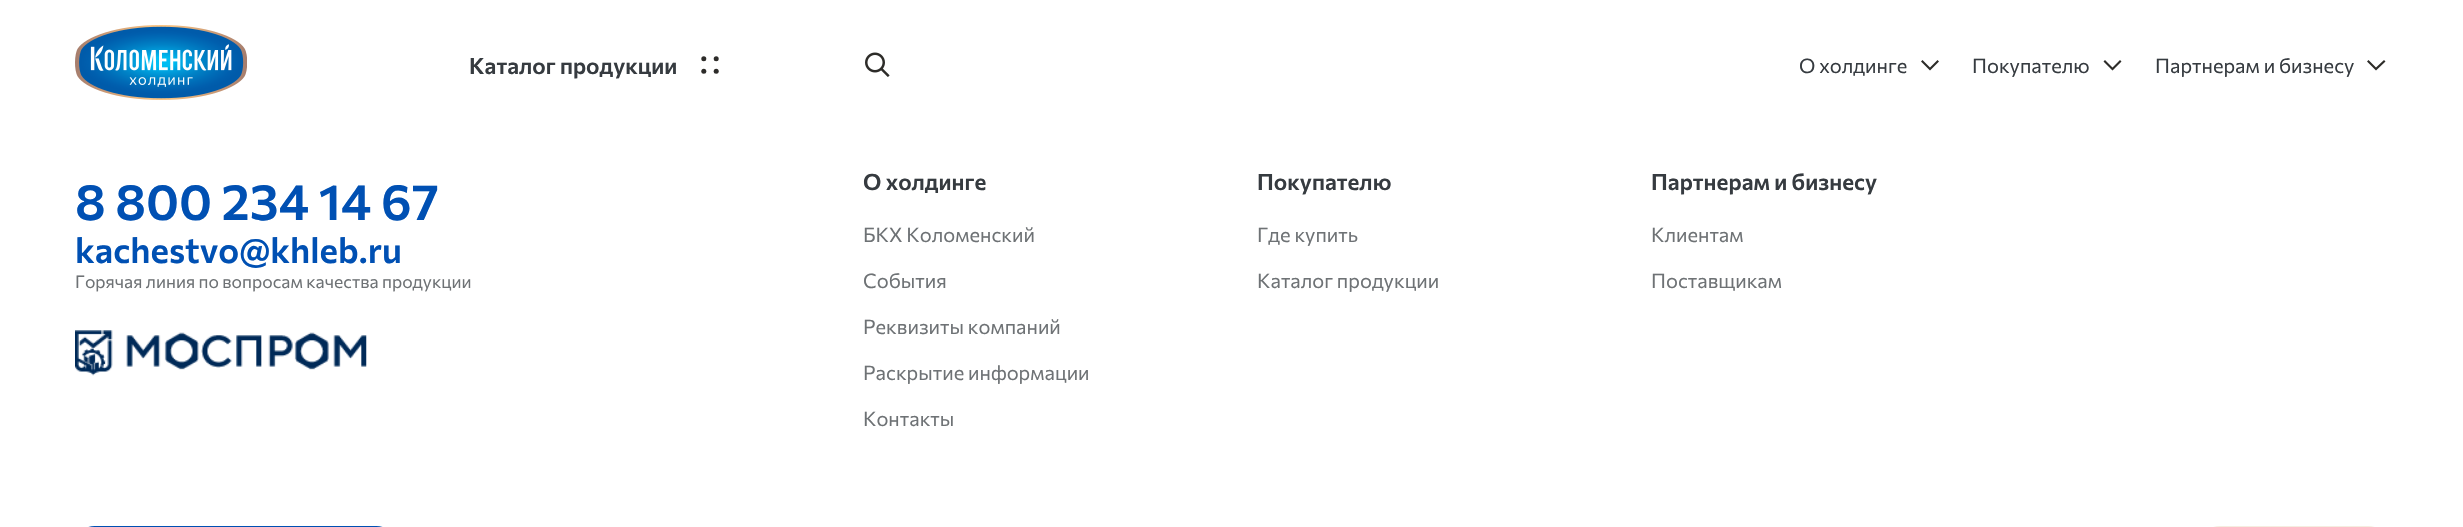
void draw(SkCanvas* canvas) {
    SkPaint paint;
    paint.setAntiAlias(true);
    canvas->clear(0xFFFFFFFF);
    canvas->drawImageRect(SkImages::DeferredFromEncodedData(SkData::MakeFromFileName("img1.png")), SkRect::MakeXYWH(75, 25, 172, 75), SkSamplingOptions());
    SkFont font1(fontMgr->matchFamilyStyle("Commissioner", SkFontStyle(600, SkFontStyle::kNormal_Width, SkFontStyle::kUpright_Slant)), 22.5f);
    font1.setSubpixel(true);
    paint.setColor(0xFF363B40);
    canvas->drawString("Каталог продукции", 469, 74, font1, paint);
    paint.setColor(0xFF2D2C29);
    canvas->drawCircle(703.8f, 58.8f, 2.5f, paint);
    canvas->drawCircle(703.8f, 71.2f, 2.5f, paint);
    canvas->drawCircle(716.2f, 58.8f, 2.5f, paint);
    canvas->drawCircle(716.2f, 71.2f, 2.5f, paint);
    canvas->drawImageRect(SkImages::DeferredFromEncodedData(SkData::MakeFromFileName("img2.png")), SkRect::MakeXYWH(865, 52, 25, 25), SkSamplingOptions());
    SkFont font2(fontMgr->matchFamilyStyle("Commissioner", SkFontStyle::Normal()), 20);
    font2.setSubpixel(true);
    paint.setColor(0xFF363B40);
    canvas->drawString("О холдинге", 1799, 73, font2, paint);
    paint.setColor(0xFF2D2C29);
    canvas->drawPath(SkPathBuilder(SkPathFillType::kEvenOdd).moveTo(1937.5f, 60).lineTo(1939, 61.5f).lineTo(1930, 70.5f).lineTo(1921, 61.5f).lineTo(1922.5f, 60).lineTo(1930, 67.5f).close().detach(), paint);
    paint.setColor(0xFF363B40);
    canvas->drawString("Покупателю", 1972, 73, font2, paint);
    paint.setColor(0xFF2D2C29);
    canvas->drawPath(SkPathBuilder(SkPathFillType::kEvenOdd).moveTo(2120, 60).lineTo(2121.5f, 61.5f).lineTo(2112.5f, 70.5f).lineTo(2103.5f, 61.5f).lineTo(2105, 60).lineTo(2112.5f, 67.5f).close().detach(), paint);
    paint.setColor(0xFF363B40);
    canvas->drawString("Партнерам и бизнесу", 2155, 73, font2, paint);
    paint.setColor(0xFF2D2C29);
    canvas->drawPath(SkPathBuilder(SkPathFillType::kEvenOdd).moveTo(2384, 60).lineTo(2385.5f, 61.5f).lineTo(2376, 70.5f).lineTo(2367, 61.5f).lineTo(2368.5f, 60).lineTo(2376, 67.5f).close().detach(), paint);
    SkFont font3(fontMgr->matchFamilyStyle("Commissioner", SkFontStyle(600, SkFontStyle::kNormal_Width, SkFontStyle::kUpright_Slant)), 50);
    font3.setSubpixel(true);
    paint.setColor(0xFF0050B3);
    canvas->drawString("8 800 234 14 67", 75, 220, font3, paint);
    SkFont font4(fontMgr->matchFamilyStyle("Commissioner", SkFontStyle(600, SkFontStyle::kNormal_Width, SkFontStyle::kUpright_Slant)), 35);
    font4.setSubpixel(true);
    canvas->drawString("kachestvo@khleb.ru", 75, 263, font4, paint);
    SkFont font5(fontMgr->matchFamilyStyle("Commissioner", SkFontStyle::Normal()), 17.5f);
    font5.setSubpixel(true);
    paint.setColor(0xFF6E7275);
    canvas->drawString("Горячая линия по вопросам качества продукции", 75, 288, font5, paint);
    canvas->drawImageRect(SkImages::DeferredFromEncodedData(SkData::MakeFromFileName("img3.png")), SkRect::MakeXYWH(75, 330, 292, 46), SkSamplingOptions());
    paint.setColor(0xFF363B40);
    canvas->drawString("О холдинге", 863, 190, font1, paint);
    paint.setColor(0xFF6E7275);
    canvas->drawString("БКХ Коломенский", 863, 242, font2, paint);
    canvas->drawString("События", 863, 288, font2, paint);
    canvas->drawString("Реквизиты компаний", 863, 334, font2, paint);
    canvas->drawString("Раскрытие информации", 863, 380, font2, paint);
    canvas->drawString("Контакты", 863, 426, font2, paint);
    paint.setColor(0xFF363B40);
    canvas->drawString("Покупателю", 1257, 190, font1, paint);
    paint.setColor(0xFF6E7275);
    canvas->drawString("Где купить", 1257, 242, font2, paint);
    canvas->drawString("Каталог продукции", 1257, 288, font2, paint);
    paint.setColor(0xFF363B40);
    canvas->drawString("Партнерам и бизнесу", 1651, 190, font1, paint);
    paint.setColor(0xFF6E7275);
    canvas->drawString("Клиентам", 1651, 242, font2, paint);
    canvas->drawString("Поставщикам", 1651, 288, font2, paint);
    paint.setColor(0xFF0050B3);
    canvas->drawRoundRect(SkRect::MakeXYWH(75, 526, 321, 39), 37.5f, 37.5f, paint);
    paint.setStyle(SkPaint::kStroke_Style);
    paint.setStrokeWidth(3);
    paint.setColor(0xFFF5EDE0);
    canvas->drawRoundRect(SkRect::MakeXYWH(2200.5f, 527.5f, 187, 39), 36, 36, paint);
}
